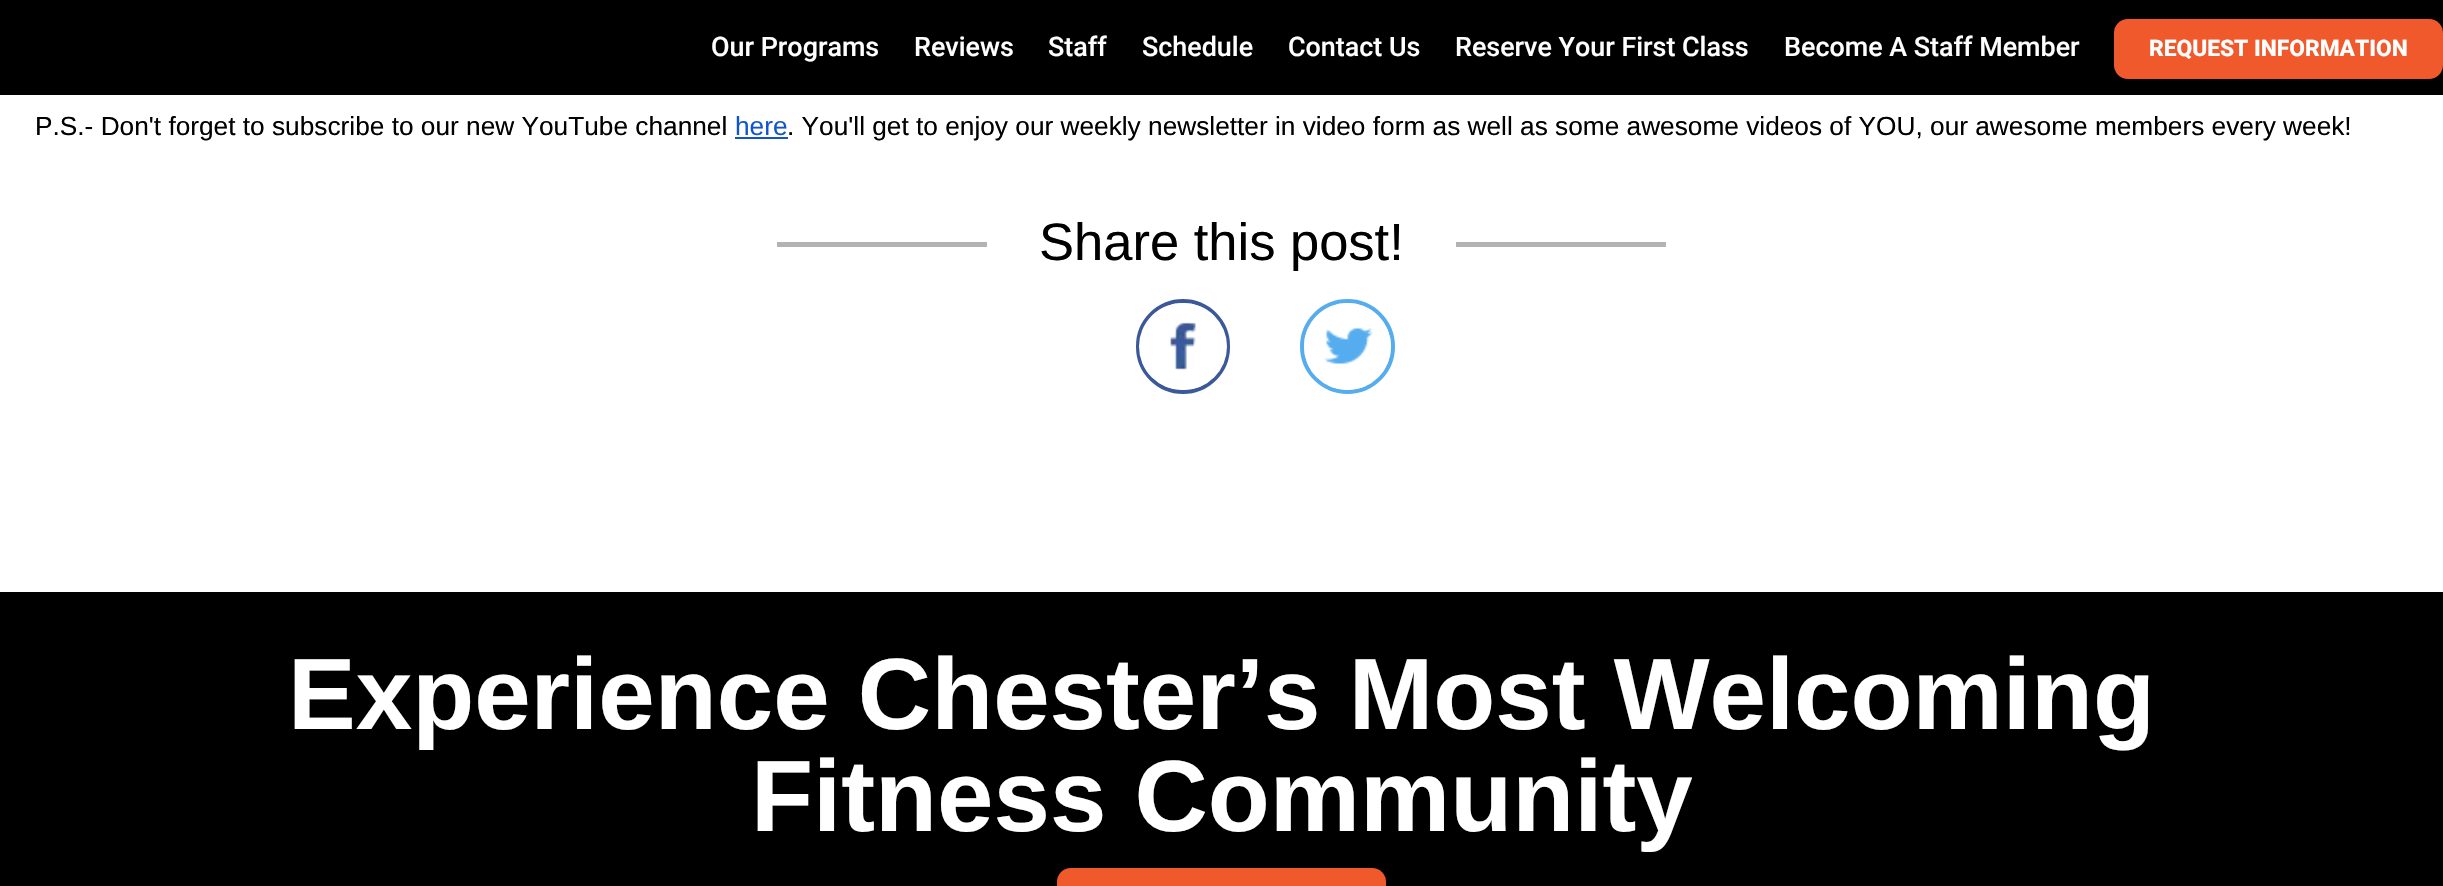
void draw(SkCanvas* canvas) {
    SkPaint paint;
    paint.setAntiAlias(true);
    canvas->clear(0xFFFFFFFF);
    paint.setColor(0xFF000000);
    canvas->drawRect(SkRect::MakeXYWH(0, 0, 2443, 95), paint);
    SkFont font1(fontMgr->matchFamilyStyle("Roboto", SkFontStyle(500, SkFontStyle::kNormal_Width, SkFontStyle::kUpright_Slant)), 26.9f);
    font1.setSubpixel(true);
    paint.setColor(0xFFFFFFFF);
    canvas->drawString("Our Programs", 711, 56, font1, paint);
    canvas->drawString("Reviews", 914, 56, font1, paint);
    canvas->drawString("Staff", 1048, 56, font1, paint);
    canvas->drawString("Schedule", 1142, 56, font1, paint);
    canvas->drawString("Contact Us", 1288, 56, font1, paint);
    canvas->drawString("Reserve Your First Class", 1455, 56, font1, paint);
    canvas->drawString("Become A Staff Member", 1784, 56, font1, paint);
    paint.setColor(0xFFF0592C);
    canvas->drawRoundRect(SkRect::MakeXYWH(2114, 19, 329, 60), 14, 14, paint);
    SkFont font2(fontMgr->matchFamilyStyle("Roboto", SkFontStyle(800, SkFontStyle::kNormal_Width, SkFontStyle::kUpright_Slant)), 22.75f);
    font2.setSubpixel(true);
    paint.setColor(0xFFFFFFFF);
    canvas->drawString("REQUEST INFORMATION", 2149, 56, font2, paint);
    SkFont font3(fontMgr->matchFamilyStyle("Liberation Sans", SkFontStyle::Normal()), 26.25f);
    font3.setSubpixel(true);
    paint.setColor(0xFF000000);
    canvas->drawString("P.S.- Don't forget to subscribe to our new YouTube channel", 35, 135, font3, paint);
    paint.setColor(0xFF1155CC);
    canvas->drawString("here", 735, 135, font3, paint);
    canvas->drawRect(SkRect::MakeXYWH(735, 137, 53, 2), paint);
    paint.setColor(0xFF000000);
    canvas->drawString(". You'll get to enjoy our weekly newsletter in video form as well as some awesome videos of YOU, our awesome members every week!", 787, 135, font3, paint);
    paint.setColor(0xFFB3B3B3);
    canvas->drawRect(SkRect::MakeXYWH(777, 242, 210, 5), paint);
    SkFont font4(fontMgr->matchFamilyStyle("Liberation Sans", SkFontStyle::Normal()), 52.5f);
    font4.setSubpixel(true);
    paint.setColor(0xFF000000);
    canvas->drawString("Share this post!", 1039, 260, font4, paint);
    paint.setColor(0xFFB3B3B3);
    canvas->drawRect(SkRect::MakeXYWH(1456, 242, 210, 5), paint);
    paint.setStyle(SkPaint::kStroke_Style);
    paint.setStrokeWidth(4);
    paint.setColor(0xFF3B5999);
    canvas->drawRoundRect(SkRect::MakeXYWH(1138, 301, 90, 91), 45, 45, paint);
    paint.setStyle(SkPaint::kFill_Style);
    paint.setColor(0xFFFFFFFF);
    canvas->drawRoundRect(SkRect::MakeXYWH(1139, 303, 88, 87), 43.5f, 43.5f, paint);
    canvas->drawImageRect(SkImages::DeferredFromEncodedData(SkData::MakeFromFileName("img1.png")), SkRect::MakeXYWH(1170, 322, 26, 48), SkSamplingOptions());
    paint.setStyle(SkPaint::kStroke_Style);
    paint.setColor(0xFF55ACEE);
    canvas->drawCircle(1347.5f, 346.5f, 45.5f, paint);
    paint.setStyle(SkPaint::kFill_Style);
    paint.setColor(0xFFFFFFFF);
    canvas->drawCircle(1347.5f, 346.5f, 43.5f, paint);
    canvas->drawImageRect(SkImages::DeferredFromEncodedData(SkData::MakeFromFileName("img2.png")), SkRect::MakeXYWH(1324, 328, 49, 36), SkSamplingOptions());
    paint.setColor(0xFF000000);
    canvas->drawRect(SkRect::MakeXYWH(0, 592, 2443, 294), paint);
    SkFont font5(fontMgr->matchFamilyStyle("Liberation Sans", SkFontStyle::Bold()), 101.5f);
    font5.setSubpixel(true);
    paint.setColor(0xFFFFFFFF);
    canvas->drawString("Experience Chester’s Most Welcoming", 288, 729, font5, paint);
    canvas->drawString("Fitness Community", 751, 831, font5, paint);
    paint.setColor(0xFFF0592C);
    canvas->drawRoundRect(SkRect::MakeXYWH(1057, 868, 329, 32), 14, 14, paint);
}
